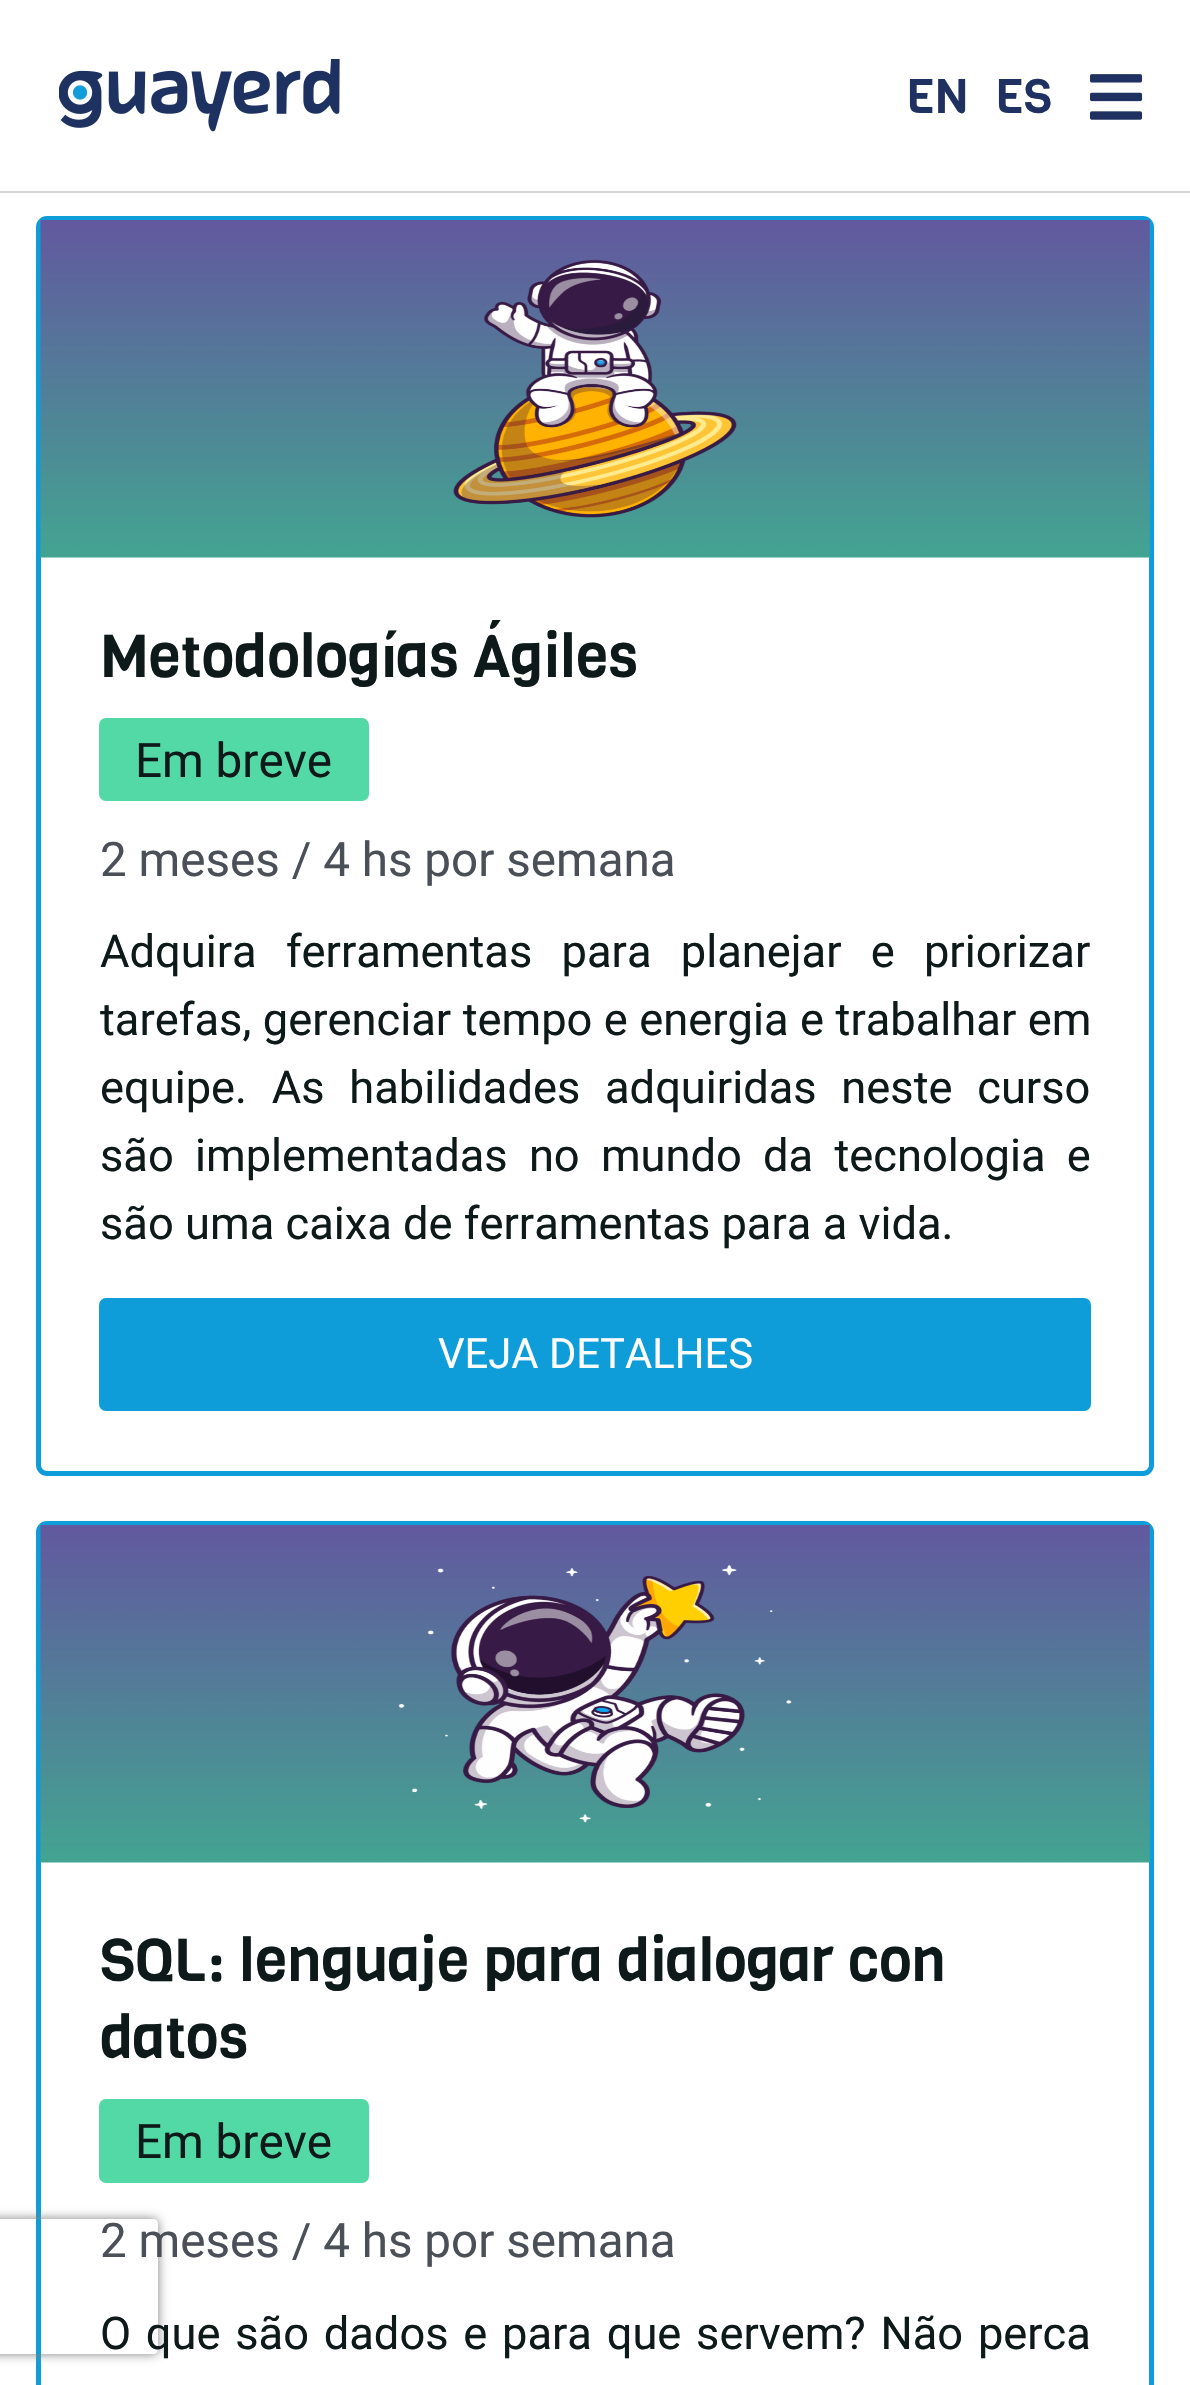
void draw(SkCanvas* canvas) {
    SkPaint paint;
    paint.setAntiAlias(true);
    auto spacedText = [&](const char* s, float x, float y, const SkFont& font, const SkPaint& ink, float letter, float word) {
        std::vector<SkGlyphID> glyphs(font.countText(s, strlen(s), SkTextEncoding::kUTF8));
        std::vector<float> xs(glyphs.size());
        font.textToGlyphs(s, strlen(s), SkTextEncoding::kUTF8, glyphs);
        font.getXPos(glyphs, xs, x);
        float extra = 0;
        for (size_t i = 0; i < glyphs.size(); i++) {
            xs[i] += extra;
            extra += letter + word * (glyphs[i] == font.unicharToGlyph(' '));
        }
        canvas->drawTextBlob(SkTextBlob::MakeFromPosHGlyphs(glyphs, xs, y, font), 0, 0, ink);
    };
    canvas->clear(0xFFFFFFFF);
    paint.setColor(0xFFD6D6D6);
    canvas->drawRect(SkRect::MakeXYWH(0, 191, 1190, 2), paint);
    canvas->drawImageRect(SkImages::DeferredFromEncodedData(SkData::MakeFromFileName("img1.png")), SkRect::MakeXYWH(59, 59, 281, 73), SkSamplingOptions());
    SkFont font1(fontMgr->matchFamilyStyle("Viga", SkFontStyle::Normal()), 47.6f);
    font1.setSubpixel(true);
    paint.setColor(0xFF1E3161);
    canvas->drawString("EN", 906, 113, font1, paint);
    canvas->drawString("ES", 995, 113, font1, paint);
    canvas->drawImageRect(SkImages::DeferredFromEncodedData(SkData::MakeFromFileName("img2.png")), SkRect::MakeXYWH(1089, 74, 54, 46), SkSamplingOptions());
    paint.setStyle(SkPaint::kStroke_Style);
    paint.setStrokeWidth(5);
    paint.setColor(0xFF0F9DD9);
    canvas->drawRoundRect(SkRect::MakeXYWH(38.5f, 1523.5f, 1113, 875), 8.5f, 8.5f, paint);
    canvas->save();
    canvas->clipPath(SkPathBuilder(SkPathFillType::kEvenOdd).moveTo(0, 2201).lineTo(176, 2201).lineTo(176, 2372).lineTo(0, 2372).close().moveTo(-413, 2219).lineTo(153, 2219).cubicTo(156, 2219, 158, 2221, 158, 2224).lineTo(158, 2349).cubicTo(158, 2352, 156, 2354, 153, 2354).lineTo(-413, 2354).cubicTo(-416, 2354, -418, 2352, -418, 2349).lineTo(-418, 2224).cubicTo(-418, 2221, -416, 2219, -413, 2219).close().detach(), true);
    paint.setStyle(SkPaint::kFill_Style);
    paint.setColor(0xFF808080);
    paint.setMaskFilter(SkMaskFilter::MakeBlur(kNormal_SkBlurStyle, 5.5f));
    canvas->drawRoundRect(SkRect::MakeXYWH(-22, 2219, 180, 135), 5, 5, paint);
    paint.setMaskFilter(nullptr);
    canvas->restore();
    paint.setStyle(SkPaint::kStroke_Style);
    paint.setColor(0xFF0F9DD9);
    canvas->drawRoundRect(SkRect::MakeXYWH(38.5f, 218.5f, 1113, 1255), 8.5f, 8.5f, paint);
    canvas->drawImageRect(SkImages::DeferredFromEncodedData(SkData::MakeFromFileName("img3.png")), SkRect::MakeXYWH(40, 220, 1110, 338), SkSamplingOptions());
    SkFont font2(fontMgr->matchFamilyStyle("Viga", SkFontStyle::Normal()), 59.5f);
    font2.setSubpixel(true);
    paint.setStyle(SkPaint::kFill_Style);
    paint.setColor(0xFF0E1919);
    canvas->drawString("Metodologías Ágiles", 100, 677, font2, paint);
    paint.setColor(0xFF52D9A6);
    canvas->drawRoundRect(SkRect::MakeXYWH(99, 718, 270, 83), 7, 7, paint);
    SkFont font3(fontMgr->matchFamilyStyle("Roboto", SkFontStyle::Normal()), 47.6f);
    font3.setSubpixel(true);
    paint.setColor(0xFF0E1919);
    canvas->drawString("Em breve", 135, 777, font3, paint);
    paint.setColor(0xFF4B4F58);
    canvas->drawString("2 meses / 4 hs por semana", 100, 876, font3, paint);
    SkFont font4(fontMgr->matchFamilyStyle("Roboto", SkFontStyle::Normal()), 45.25f);
    font4.setSubpixel(true);
    paint.setColor(0xFF0E1919);
    spacedText("Adquira ferramentas para planejar e priorizar", 100, 967, font4, paint, 0, 18);
    spacedText("tarefas, gerenciar tempo e energia e trabalhar em", 100, 1035, font4, paint, 0, 0.25f);
    spacedText("equipe. As habilidades adquiridas neste curso", 100, 1103, font4, paint, 0, 13.5f);
    spacedText("são implementadas no mundo da tecnologia e", 100, 1171, font4, paint, 0, 10);
    canvas->drawString("são uma caixa de ferramentas para a vida.", 100, 1239, font4, paint);
    paint.setColor(0xFF0F9DD9);
    canvas->drawRoundRect(SkRect::MakeXYWH(99, 1298, 992, 113), 7, 7, paint);
    SkFont font5(fontMgr->matchFamilyStyle("Roboto", SkFontStyle::Normal()), 41.75f);
    font5.setSubpixel(true);
    paint.setColor(0xFFFFFFFF);
    canvas->drawString("VEJA DETALHES", 438, 1368, font5, paint);
    canvas->drawImageRect(SkImages::DeferredFromEncodedData(SkData::MakeFromFileName("img4.png")), SkRect::MakeXYWH(40, 1525, 1110, 338), SkSamplingOptions());
    paint.setColor(0xFF0E1919);
    canvas->drawString("SQL: lenguaje para dialogar con", 100, 1981, font2, paint);
    canvas->drawString("datos", 100, 2058, font2, paint);
    paint.setColor(0xFF52D9A6);
    canvas->drawRoundRect(SkRect::MakeXYWH(99, 2099, 270, 84), 7, 7, paint);
    paint.setColor(0xFF0E1919);
    canvas->drawString("Em breve", 135, 2158, font3, paint);
    paint.setColor(0xFF4B4F58);
    canvas->drawString("2 meses / 4 hs por semana", 100, 2257, font3, paint);
    paint.setColor(0xFF0E1919);
    spacedText("O que são dados e para que servem? Não perca", 100, 2349, font4, paint, 0, 3.5f);
}
